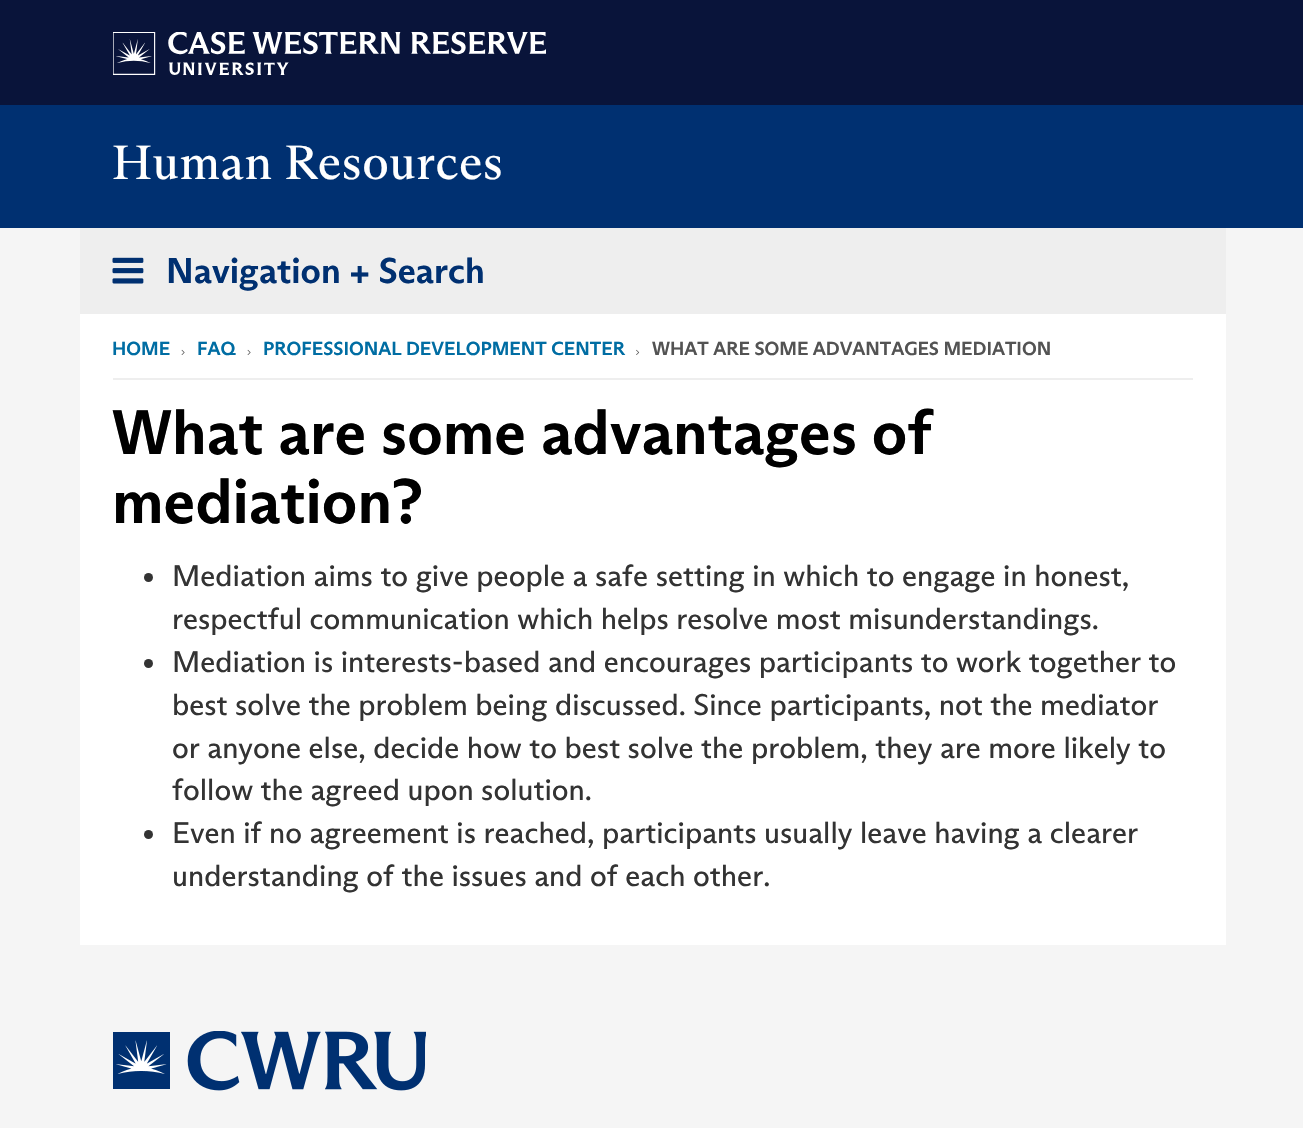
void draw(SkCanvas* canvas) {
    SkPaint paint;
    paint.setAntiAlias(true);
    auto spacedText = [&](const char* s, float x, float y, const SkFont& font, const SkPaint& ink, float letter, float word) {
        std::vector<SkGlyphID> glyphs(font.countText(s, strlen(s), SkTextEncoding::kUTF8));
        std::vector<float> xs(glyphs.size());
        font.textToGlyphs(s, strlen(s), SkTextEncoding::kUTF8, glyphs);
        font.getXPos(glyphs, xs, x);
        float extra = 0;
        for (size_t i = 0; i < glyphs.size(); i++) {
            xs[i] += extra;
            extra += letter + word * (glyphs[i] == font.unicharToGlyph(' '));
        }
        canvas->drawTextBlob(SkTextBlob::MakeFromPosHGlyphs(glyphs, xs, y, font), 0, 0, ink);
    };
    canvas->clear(0xFFF5F5F5);
    paint.setColor(0xFF09143A);
    canvas->drawRect(SkRect::MakeXYWH(0, 0, 1303, 105), paint);
    canvas->drawImageRect(SkImages::DeferredFromEncodedData(SkData::MakeFromFileName("img1.png")), SkRect::MakeXYWH(113, 32, 433, 43), SkSamplingOptions());
    paint.setColor(0xFF003071);
    canvas->drawRect(SkRect::MakeXYWH(0, 105, 1303, 123), paint);
    SkFont font1(fontMgr->matchFamilyStyle("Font", SkFontStyle::Normal()), 48);
    font1.setSubpixel(true);
    paint.setColor(0xFFFFFFFF);
    spacedText("Human Resources", 112, 179, font1, paint, 0.5f, 0);
    paint.setColor(0xFFEEEEEE);
    canvas->drawRect(SkRect::MakeXYWH(80, 228, 1146, 86), paint);
    canvas->drawImageRect(SkImages::DeferredFromEncodedData(SkData::MakeFromFileName("img2.png")), SkRect::MakeXYWH(112, 257, 32, 27), SkSamplingOptions());
    SkFont font2(fontMgr->matchFamilyStyle("Font", SkFontStyle::Bold()), 36);
    font2.setSubpixel(true);
    paint.setColor(0xFF003071);
    canvas->drawString("Navigation + Search", 166, 283, font2, paint);
    paint.setColor(0xFFFFFFFF);
    canvas->drawRect(SkRect::MakeXYWH(80, 314, 1146, 631), paint);
    paint.setColor(0xFFEEEEEE);
    canvas->drawRect(SkRect::MakeXYWH(113, 378, 1080, 2), paint);
    SkFont font3(fontMgr->matchFamilyStyle("Font", SkFontStyle::Bold()), 18.9f);
    font3.setSubpixel(true);
    paint.setColor(0xFF006DA3);
    canvas->drawString("HOME", 112, 355, font3, paint);
    canvas->drawImageRect(SkImages::DeferredFromEncodedData(SkData::MakeFromFileName("img3.png")), SkRect::MakeXYWH(181, 349, 4, 6), SkSamplingOptions());
    canvas->drawString("FAQ", 197, 355, font3, paint);
    canvas->drawImageRect(SkImages::DeferredFromEncodedData(SkData::MakeFromFileName("img3.png")), SkRect::MakeXYWH(247, 349, 4, 6), SkSamplingOptions());
    canvas->drawString("PROFESSIONAL DEVELOPMENT CENTER", 263, 355, font3, paint);
    canvas->drawImageRect(SkImages::DeferredFromEncodedData(SkData::MakeFromFileName("img4.png")), SkRect::MakeXYWH(636, 349, 4, 6), SkSamplingOptions());
    paint.setColor(0xFF535353);
    canvas->drawString("WHAT ARE SOME ADVANTAGES MEDIATION", 652, 355, font3, paint);
    SkFont font4(fontMgr->matchFamilyStyle("Font", SkFontStyle::Bold()), 63);
    font4.setSubpixel(true);
    paint.setColor(0xFF000000);
    canvas->drawString("What are some advantages of", 112, 454, font4, paint);
    canvas->drawString("mediation?", 112, 523, font4, paint);
    paint.setColor(0xFF333333);
    canvas->drawCircle(148.5f, 577.5f, 4.5f, paint);
    SkFont font5(fontMgr->matchFamilyStyle("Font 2", SkFontStyle::Normal()), 30);
    font5.setSubpixel(true);
    canvas->drawString("Mediation aims to give people a safe setting in which to engage in honest,", 172, 586, font5, paint);
    canvas->drawString("respectful communication which helps resolve most misunderstandings.", 172, 629, font5, paint);
    canvas->drawCircle(148.5f, 663.5f, 4.5f, paint);
    canvas->drawString("Mediation is interests-based and encourages participants to work together to", 172, 672, font5, paint);
    canvas->drawString("best solve the problem being discussed. Since participants, not the mediator", 172, 715, font5, paint);
    canvas->drawString("or anyone else, decide how to best solve the problem, they are more likely to", 172, 758, font5, paint);
    canvas->drawString("follow the agreed upon solution.", 172, 800, font5, paint);
    canvas->drawCircle(148.5f, 834.5f, 4.5f, paint);
    canvas->drawString("Even if no agreement is reached, participants usually leave having a clearer", 172, 843, font5, paint);
    canvas->drawString("understanding of the issues and of each other.", 172, 886, font5, paint);
    canvas->drawImageRect(SkImages::DeferredFromEncodedData(SkData::MakeFromFileName("img5.png")), SkRect::MakeXYWH(113, 1031, 313, 60), SkSamplingOptions());
}
